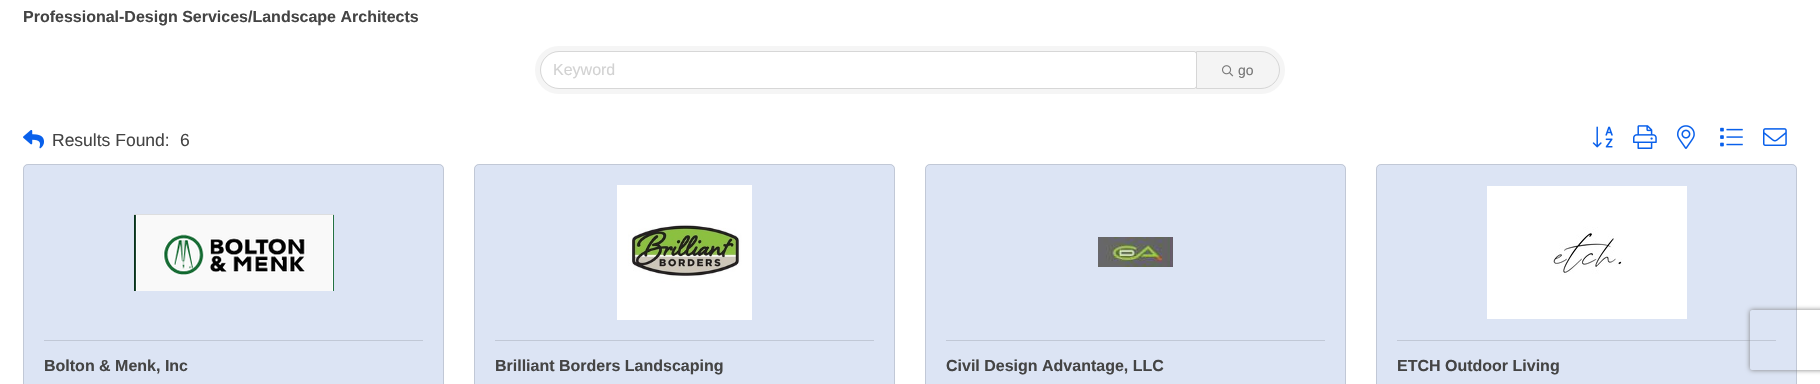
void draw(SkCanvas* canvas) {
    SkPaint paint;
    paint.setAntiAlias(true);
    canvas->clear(0xFFFFFFFF);
    SkFont font1(fontMgr->matchFamilyStyle("Liberation Sans", SkFontStyle::Bold()), 16);
    font1.setSubpixel(true);
    paint.setColor(0xFF444444);
    canvas->drawString("Professional-Design Services/Landscape Architects", 23, 22, font1, paint);
    paint.setColor(0xFFF5F5F5);
    canvas->drawRoundRect(SkRect::MakeXYWH(535, 46, 750, 48), 24, 24, paint);
    paint.setColor(0xFFFFFFFF);
    canvas->drawPath(SkPathBuilder().moveTo(559, 52).lineTo(1194, 52).cubicTo(1195, 52, 1196, 53, 1196, 54).lineTo(1196, 86).cubicTo(1196, 87, 1195, 88, 1194, 88).lineTo(559, 88).cubicTo(549, 88, 541, 80, 541, 70).cubicTo(541, 60, 549, 52, 559, 52).close().detach(), paint);
    paint.setStyle(SkPaint::kStroke_Style);
    paint.setStrokeWidth(1);
    paint.setColor(0x1F000000);
    canvas->drawPath(SkPathBuilder().moveTo(559, 51.5f).lineTo(1194, 51.5f).cubicTo(1195.5f, 51.5f, 1196.5f, 52.5f, 1196.5f, 54).lineTo(1196.5f, 86).cubicTo(1196.5f, 87.5f, 1195.5f, 88.5f, 1194, 88.5f).lineTo(559, 88.5f).cubicTo(549, 88.5f, 540.5f, 80, 540.5f, 70).cubicTo(540.5f, 60, 549, 51.5f, 559, 51.5f).close().detach(), paint);
    SkFont font2(fontMgr->matchFamilyStyle("Liberation Sans", SkFontStyle::Normal()), 16);
    font2.setSubpixel(true);
    paint.setStyle(SkPaint::kFill_Style);
    paint.setColor(0xFFD2D2D2);
    canvas->drawString("Keyword", 553, 75, font2, paint);
    paint.setColor(0xFFF4F4F4);
    canvas->drawPath(SkPathBuilder().moveTo(1196.5f, 51.5f).lineTo(1261, 51.5f).cubicTo(1271, 51.5f, 1279.5f, 60, 1279.5f, 70).cubicTo(1279.5f, 80, 1271, 88.5f, 1261, 88.5f).lineTo(1196.5f, 88.5f).close().detach(), paint);
    paint.setStyle(SkPaint::kStroke_Style);
    paint.setColor(0xFFD6D6D6);
    canvas->drawPath(SkPathBuilder().moveTo(1196.5f, 51.5f).lineTo(1261, 51.5f).cubicTo(1271, 51.5f, 1279.5f, 60, 1279.5f, 70).cubicTo(1279.5f, 80, 1271, 88.5f, 1261, 88.5f).lineTo(1196.5f, 88.5f).close().detach(), paint);
    canvas->drawImageRect(SkImages::DeferredFromEncodedData(SkData::MakeFromFileName("img1.png")), SkRect::MakeXYWH(1222, 65, 12, 12), SkSamplingOptions());
    SkFont font3(fontMgr->matchFamilyStyle("Liberation Sans", SkFontStyle::Normal()), 14);
    font3.setSubpixel(true);
    paint.setStyle(SkPaint::kFill_Style);
    paint.setColor(0xFF777777);
    canvas->drawString("go", 1238, 75, font3, paint);
    canvas->drawImageRect(SkImages::DeferredFromEncodedData(SkData::MakeFromFileName("img2.png")), SkRect::MakeXYWH(23, 130, 21, 19), SkSamplingOptions());
    SkFont font4(fontMgr->matchFamilyStyle("Liberation Sans", SkFontStyle::Normal()), 17.5f);
    font4.setSubpixel(true);
    paint.setColor(0xFF444444);
    canvas->drawString("Results Found:", 52, 146, font4, paint);
    canvas->drawString("6", 180, 146, font4, paint);
    canvas->drawImageRect(SkImages::DeferredFromEncodedData(SkData::MakeFromFileName("img3.png")), SkRect::MakeXYWH(1592, 126, 21, 22), SkSamplingOptions());
    canvas->drawImageRect(SkImages::DeferredFromEncodedData(SkData::MakeFromFileName("img4.png")), SkRect::MakeXYWH(1633, 125, 24, 24), SkSamplingOptions());
    canvas->drawImageRect(SkImages::DeferredFromEncodedData(SkData::MakeFromFileName("img5.png")), SkRect::MakeXYWH(1677, 125, 18, 24), SkSamplingOptions());
    canvas->drawImageRect(SkImages::DeferredFromEncodedData(SkData::MakeFromFileName("img6.png")), SkRect::MakeXYWH(1720, 127, 23, 20), SkSamplingOptions());
    canvas->drawImageRect(SkImages::DeferredFromEncodedData(SkData::MakeFromFileName("img7.png")), SkRect::MakeXYWH(1763, 128, 24, 18), SkSamplingOptions());
    paint.setColor(0xFFDCE4F4);
    canvas->drawRoundRect(SkRect::MakeXYWH(23, 164, 421, 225), 5, 5, paint);
    paint.setStyle(SkPaint::kStroke_Style);
    paint.setColor(0x1F000000);
    canvas->drawRoundRect(SkRect::MakeXYWH(23.5f, 164.5f, 420, 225), 4.5f, 4.5f, paint);
    canvas->drawImageRect(SkImages::DeferredFromEncodedData(SkData::MakeFromFileName("img8.png")), SkRect::MakeXYWH(134, 214, 200, 77), SkSamplingOptions());
    paint.setStyle(SkPaint::kFill_Style);
    paint.setColor(0xFFC1C8D6);
    canvas->drawRect(SkRect::MakeXYWH(44, 340, 379, 1), paint);
    paint.setColor(0xFF444444);
    canvas->drawString("Bolton & Menk, Inc", 44, 371, font1, paint);
    paint.setColor(0xFFDCE4F4);
    canvas->drawRoundRect(SkRect::MakeXYWH(474, 164, 421, 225), 5, 5, paint);
    paint.setStyle(SkPaint::kStroke_Style);
    paint.setColor(0x1F000000);
    canvas->drawRoundRect(SkRect::MakeXYWH(474.5f, 164.5f, 420, 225), 4.5f, 4.5f, paint);
    canvas->drawImageRect(SkImages::DeferredFromEncodedData(SkData::MakeFromFileName("img9.png")), SkRect::MakeXYWH(617, 185, 135, 135), SkSamplingOptions());
    paint.setStyle(SkPaint::kFill_Style);
    paint.setColor(0xFFC1C8D6);
    canvas->drawRect(SkRect::MakeXYWH(495, 340, 379, 1), paint);
    paint.setColor(0xFF444444);
    canvas->drawString("Brilliant Borders Landscaping", 495, 371, font1, paint);
    paint.setColor(0xFFDCE4F4);
    canvas->drawRoundRect(SkRect::MakeXYWH(925, 164, 421, 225), 5, 5, paint);
    paint.setStyle(SkPaint::kStroke_Style);
    paint.setColor(0x1F000000);
    canvas->drawRoundRect(SkRect::MakeXYWH(925.5f, 164.5f, 420, 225), 4.5f, 4.5f, paint);
    canvas->drawImageRect(SkImages::DeferredFromEncodedData(SkData::MakeFromFileName("img10.png")), SkRect::MakeXYWH(1098, 237, 75, 30), SkSamplingOptions());
    paint.setStyle(SkPaint::kFill_Style);
    paint.setColor(0xFFC1C8D6);
    canvas->drawRect(SkRect::MakeXYWH(946, 340, 379, 1), paint);
    paint.setColor(0xFF444444);
    canvas->drawString("Civil Design Advantage, LLC", 946, 371, font1, paint);
    paint.setColor(0xFFDCE4F4);
    canvas->drawRoundRect(SkRect::MakeXYWH(1376, 164, 421, 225), 5, 5, paint);
    paint.setStyle(SkPaint::kStroke_Style);
    paint.setColor(0x1F000000);
    canvas->drawRoundRect(SkRect::MakeXYWH(1376.5f, 164.5f, 420, 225), 4.5f, 4.5f, paint);
    canvas->drawImageRect(SkImages::DeferredFromEncodedData(SkData::MakeFromFileName("img11.png")), SkRect::MakeXYWH(1487, 186, 200, 133), SkSamplingOptions());
    paint.setStyle(SkPaint::kFill_Style);
    paint.setColor(0xFFC1C8D6);
    canvas->drawRect(SkRect::MakeXYWH(1397, 340, 379, 1), paint);
    paint.setColor(0xFF444444);
    canvas->drawString("ETCH Outdoor Living", 1397, 371, font1, paint);
    canvas->save();
    canvas->clipPath(SkPathBuilder(SkPathFillType::kEvenOdd).moveTo(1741, 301).lineTo(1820, 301).lineTo(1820, 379).lineTo(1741, 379).close().moveTo(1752, 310).lineTo(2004, 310).cubicTo(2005, 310, 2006, 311, 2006, 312).lineTo(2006, 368).cubicTo(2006, 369, 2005, 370, 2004, 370).lineTo(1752, 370).cubicTo(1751, 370, 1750, 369, 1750, 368).lineTo(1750, 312).cubicTo(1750, 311, 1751, 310, 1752, 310).close().detach(), true);
    paint.setColor(0xFF808080);
    paint.setMaskFilter(SkMaskFilter::MakeBlur(kNormal_SkBlurStyle, 2.5f));
    canvas->drawRoundRect(SkRect::MakeXYWH(1750, 310, 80, 60), 2, 2, paint);
    paint.setMaskFilter(nullptr);
    canvas->restore();
}
